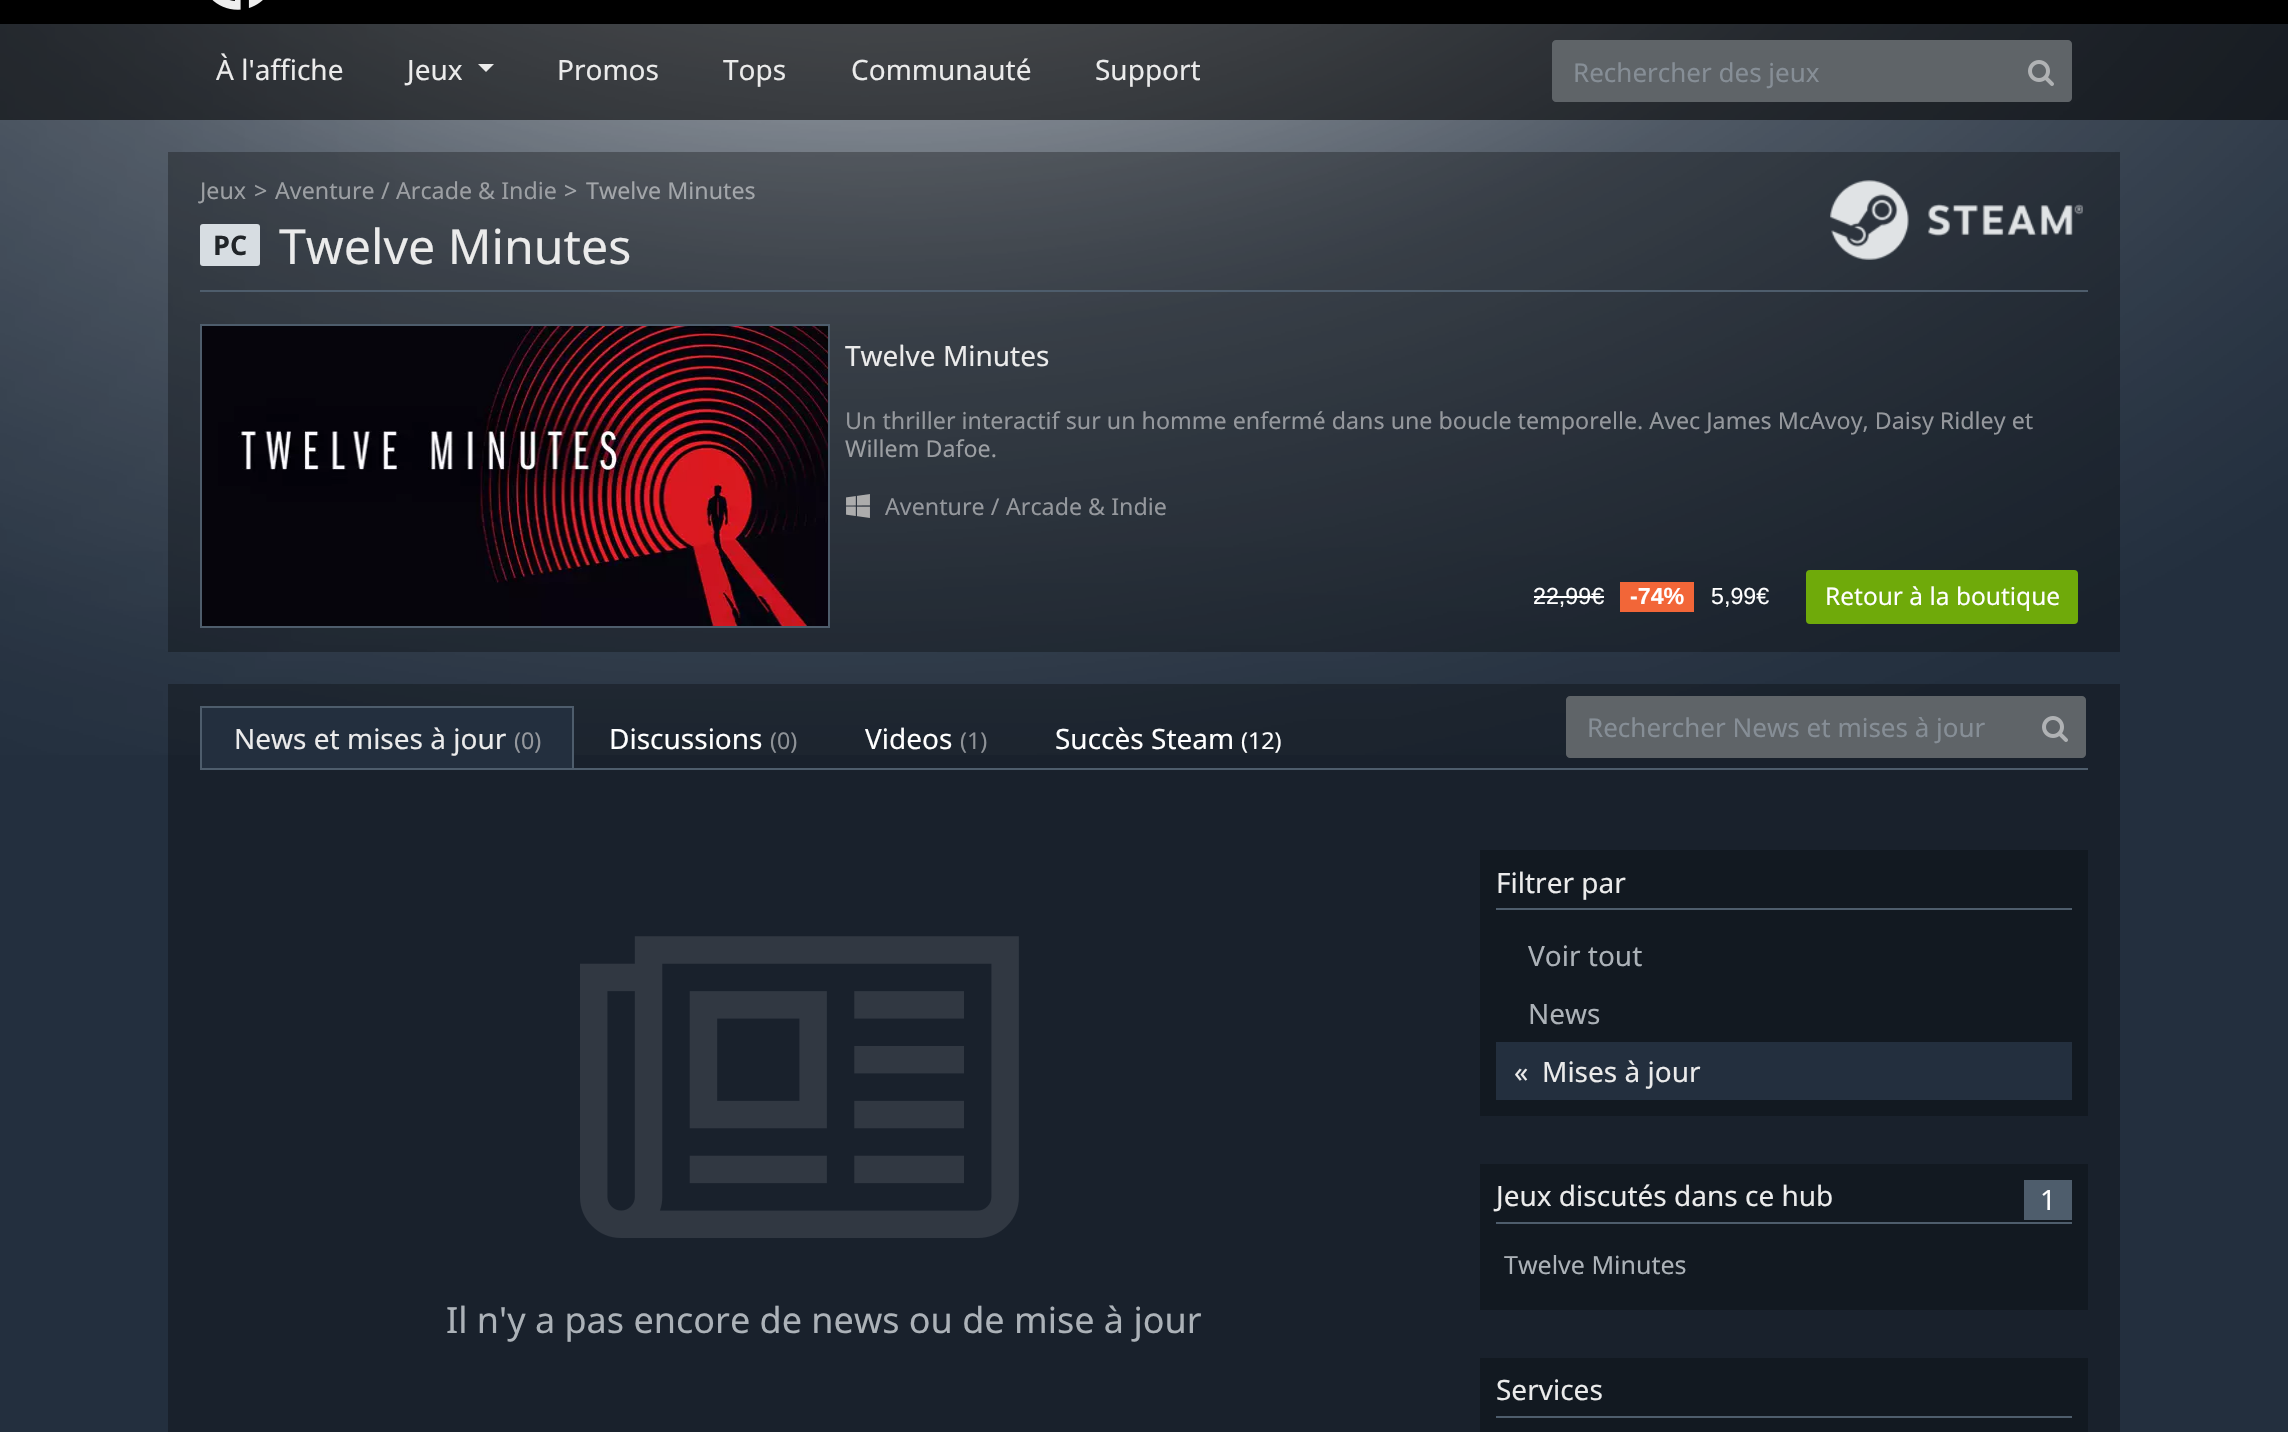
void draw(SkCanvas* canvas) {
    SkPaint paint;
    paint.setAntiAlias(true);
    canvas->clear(0xFF232F3E);
    canvas->drawImageRect(SkImages::DeferredFromEncodedData(SkData::MakeFromFileName("img1.png")), SkRect::MakeXYWH(0, 24, 2288, 731), SkSamplingOptions());
    paint.setColor(0xFF000000);
    canvas->drawRect(SkRect::MakeXYWH(0, 0, 2288, 24), paint);
    canvas->drawImageRect(SkImages::DeferredFromEncodedData(SkData::MakeFromFileName("img2.png")), SkRect::MakeXYWH(212, 0, 51, 10), SkSamplingOptions());
    paint.setColor(0x8C000000);
    canvas->drawRect(SkRect::MakeXYWH(0, 24, 2288, 96), paint);
    SkFont font1(fontMgr->matchFamilyStyle("Noto Sans", SkFontStyle::Normal()), 28);
    font1.setSubpixel(true);
    paint.setColor(0xFFEBEBEB);
    canvas->drawString("À l'affiche", 216, 80, font1, paint);
    canvas->drawString("Jeux", 407, 80, font1, paint);
    canvas->drawPath(SkPathBuilder().moveTo(478, 64).lineTo(494, 64).lineTo(486, 72).close().detach(), paint);
    canvas->drawString("Promos", 557, 80, font1, paint);
    canvas->drawString("Tops", 723, 80, font1, paint);
    canvas->drawString("Communauté", 851, 80, font1, paint);
    canvas->drawString("Support", 1095, 80, font1, paint);
    paint.setColor(0xFF5F6468);
    canvas->drawPath(SkPathBuilder().moveTo(1556, 41).lineTo(2011, 41).lineTo(2011, 101).lineTo(1556, 101).cubicTo(1554.5f, 101, 1553, 99.5f, 1553, 98).lineTo(1553, 44).cubicTo(1553, 42.5f, 1554.5f, 41, 1556, 41).close().detach(), paint);
    paint.setStyle(SkPaint::kStroke_Style);
    paint.setStrokeWidth(2);
    canvas->drawPath(SkPathBuilder().moveTo(1556, 41).lineTo(2011, 41).lineTo(2011, 101).lineTo(1556, 101).cubicTo(1554.5f, 101, 1553, 99.5f, 1553, 98).lineTo(1553, 44).cubicTo(1553, 42.5f, 1554.5f, 41, 1556, 41).close().detach(), paint);
    SkFont font2(fontMgr->matchFamilyStyle("Noto Sans", SkFontStyle::Normal()), 26);
    font2.setSubpixel(true);
    paint.setStyle(SkPaint::kFill_Style);
    paint.setColor(0xFF868E96);
    canvas->drawString("Rechercher des jeux", 1573, 82, font2, paint);
    paint.setColor(0xFF5F6468);
    canvas->drawPath(SkPathBuilder().moveTo(2011, 41).lineTo(2068, 41).cubicTo(2069.5f, 41, 2071, 42.5f, 2071, 44).lineTo(2071, 98).cubicTo(2071, 99.5f, 2069.5f, 101, 2068, 101).lineTo(2011, 101).close().detach(), paint);
    paint.setStyle(SkPaint::kStroke_Style);
    canvas->drawPath(SkPathBuilder().moveTo(2011, 41).lineTo(2068, 41).cubicTo(2069.5f, 41, 2071, 42.5f, 2071, 44).lineTo(2071, 98).cubicTo(2071, 99.5f, 2069.5f, 101, 2068, 101).lineTo(2011, 101).close().detach(), paint);
    canvas->drawImageRect(SkImages::DeferredFromEncodedData(SkData::MakeFromFileName("img3.png")), SkRect::MakeXYWH(2028, 60, 26, 26), SkSamplingOptions());
    paint.setStyle(SkPaint::kFill_Style);
    paint.setColor(0x4D000000);
    canvas->drawRect(SkRect::MakeXYWH(168, 152, 1952, 500), paint);
    SkFont font3(fontMgr->matchFamilyStyle("Noto Sans", SkFontStyle::Normal()), 23.25f);
    font3.setSubpixel(true);
    paint.setColor(0xFF9C9FA3);
    canvas->drawString("Jeux", 200, 199, font3, paint);
    canvas->drawString(">", 254, 199, font3, paint);
    canvas->drawString("Aventure", 275, 199, font3, paint);
    canvas->drawString("/", 381, 199, font3, paint);
    canvas->drawString("Arcade & Indie", 396, 199, font3, paint);
    paint.setColor(0xFFA3A6AA);
    canvas->drawString(">", 564, 199, font3, paint);
    canvas->drawString("Twelve Minutes", 586, 199, font3, paint);
    paint.setColor(0xFFD7DDE2);
    canvas->drawRoundRect(SkRect::MakeXYWH(200, 224, 60, 42), 3, 3, paint);
    SkFont font4(fontMgr->matchFamilyStyle("Noto Sans", SkFontStyle::Bold()), 27);
    font4.setSubpixel(true);
    paint.setColor(0xFF212529);
    canvas->drawString("PC", 213, 255, font4, paint);
    paint.setColor(0xFF4E5D6C);
    canvas->drawRect(SkRect::MakeXYWH(200, 290, 1888, 2), paint);
    SkFont font5(fontMgr->matchFamilyStyle("Noto Sans", SkFontStyle::Normal()), 48.25f);
    font5.setSubpixel(true);
    paint.setColor(0xFFEBEBEB);
    canvas->drawString("Twelve Minutes", 279, 264, font5, paint);
    canvas->drawImageRect(SkImages::DeferredFromEncodedData(SkData::MakeFromFileName("img4.png")), SkRect::MakeXYWH(1830, 180, 253, 80), SkSamplingOptions());
    paint.setStyle(SkPaint::kStroke_Style);
    paint.setColor(0xFF4E5D6C);
    canvas->drawRect(SkRect::MakeXYWH(201, 325, 628, 302), paint);
    canvas->drawImageRect(SkImages::DeferredFromEncodedData(SkData::MakeFromFileName("img5.png")), SkRect::MakeXYWH(202, 326, 626, 300), SkSamplingOptions());
    paint.setStyle(SkPaint::kFill_Style);
    paint.setColor(0xFFEBEBEB);
    canvas->drawString("Twelve Minutes", 845, 366, font1, paint);
    paint.setColor(0xFF95989D);
    canvas->drawString("Un thriller interactif sur un homme enfermé dans une boucle temporelle. Avec James McAvoy, Daisy Ridley et", 845, 429, font3, paint);
    paint.setColor(0xFF9C9FA3);
    canvas->drawString("Willem Dafoe.", 845, 457, font3, paint);
    canvas->drawImageRect(SkImages::DeferredFromEncodedData(SkData::MakeFromFileName("img6.png")), SkRect::MakeXYWH(846, 494, 24, 24), SkSamplingOptions());
    paint.setColor(0xFF95989D);
    canvas->drawString("Aventure /", 885, 515, font3, paint);
    canvas->drawString("Arcade & Indie", 1006, 515, font3, paint);
    SkFont font6(fontMgr->matchFamilyStyle("Liberation Sans", SkFontStyle::Normal()), 23.25f);
    font6.setSubpixel(true);
    paint.setColor(0xFFFFFFFF);
    canvas->drawString("22,99€", 1533, 604, font6, paint);
    canvas->drawRect(SkRect::MakeXYWH(1534, 596, 70, 2), paint);
    paint.setColor(0xFFF26638);
    canvas->drawRect(SkRect::MakeXYWH(1620, 582, 74, 30), paint);
    SkFont font7(fontMgr->matchFamilyStyle("Liberation Sans", SkFontStyle::Bold()), 23.25f);
    font7.setSubpixel(true);
    paint.setColor(0xFFFFFFFF);
    canvas->drawString("-74%", 1630, 604, font7, paint);
    canvas->drawString("5,99€", 1711, 604, font6, paint);
    paint.setColor(0xFF6FAA0A);
    canvas->drawRoundRect(SkRect::MakeXYWH(1807, 571, 270, 52), 3, 3, paint);
    paint.setStyle(SkPaint::kStroke_Style);
    canvas->drawRoundRect(SkRect::MakeXYWH(1807, 571, 270, 52), 3, 3, paint);
    SkFont font8(fontMgr->matchFamilyStyle("Noto Sans", SkFontStyle::Normal()), 24.5f);
    font8.setSubpixel(true);
    paint.setStyle(SkPaint::kFill_Style);
    paint.setColor(0xFFFFFFFF);
    canvas->drawString("Retour à la boutique", 1825, 605, font8, paint);
    paint.setColor(0x4D000000);
    canvas->drawRect(SkRect::MakeXYWH(168, 684, 1952, 748), paint);
    paint.setColor(0xFF4E5D6C);
    canvas->drawRect(SkRect::MakeXYWH(200, 768, 1888, 2), paint);
    paint.setColor(0xFF232F3E);
    canvas->drawRect(SkRect::MakeXYWH(202, 708, 370, 60), paint);
    canvas->save();
    canvas->clipRect(SkRect::MakeXYWH(200, 706, 1888, 62));
    paint.setStyle(SkPaint::kStroke_Style);
    paint.setColor(0xFF4E5D6C);
    canvas->drawRect(SkRect::MakeXYWH(201, 707, 372, 62), paint);
    canvas->restore();
    paint.setStyle(SkPaint::kFill_Style);
    paint.setColor(0xFFEBEBEB);
    canvas->drawString("News et mises à jour", 234, 749, font1, paint);
    paint.setColor(0xFF95989D);
    canvas->drawString("(0)", 514, 749, font3, paint);
    paint.setColor(0xFFFFFFFF);
    canvas->drawString("Discussions", 609, 749, font1, paint);
    paint.setColor(0xFF8E9297);
    canvas->drawString("(0)", 770, 749, font3, paint);
    paint.setColor(0xFFFFFFFF);
    canvas->drawString("Videos", 865, 749, font1, paint);
    paint.setColor(0xFF8E9297);
    canvas->drawString("(1)", 960, 749, font3, paint);
    paint.setColor(0xFFFFFFFF);
    canvas->drawString("Succès Steam", 1055, 749, font1, paint);
    canvas->drawString("(12)", 1241, 749, font3, paint);
    paint.setColor(0xFF5F6468);
    canvas->drawPath(SkPathBuilder().moveTo(1570, 697).lineTo(2025, 697).lineTo(2025, 757).lineTo(1570, 757).cubicTo(1568.5f, 757, 1567, 755.5f, 1567, 754).lineTo(1567, 700).cubicTo(1567, 698.5f, 1568.5f, 697, 1570, 697).close().detach(), paint);
    paint.setStyle(SkPaint::kStroke_Style);
    canvas->drawPath(SkPathBuilder().moveTo(1570, 697).lineTo(2025, 697).lineTo(2025, 757).lineTo(1570, 757).cubicTo(1568.5f, 757, 1567, 755.5f, 1567, 754).lineTo(1567, 700).cubicTo(1567, 698.5f, 1568.5f, 697, 1570, 697).close().detach(), paint);
    paint.setStyle(SkPaint::kFill_Style);
    paint.setColor(0xFF868E96);
    canvas->drawString("Rechercher News et mises à jour", 1587, 737, font2, paint);
    paint.setColor(0xFF5F6468);
    canvas->drawPath(SkPathBuilder().moveTo(2025, 697).lineTo(2082, 697).cubicTo(2083.5f, 697, 2085, 698.5f, 2085, 700).lineTo(2085, 754).cubicTo(2085, 755.5f, 2083.5f, 757, 2082, 757).lineTo(2025, 757).close().detach(), paint);
    paint.setStyle(SkPaint::kStroke_Style);
    canvas->drawPath(SkPathBuilder().moveTo(2025, 697).lineTo(2082, 697).cubicTo(2083.5f, 697, 2085, 698.5f, 2085, 700).lineTo(2085, 754).cubicTo(2085, 755.5f, 2083.5f, 757, 2082, 757).lineTo(2025, 757).close().detach(), paint);
    canvas->drawImageRect(SkImages::DeferredFromEncodedData(SkData::MakeFromFileName("img3.png")), SkRect::MakeXYWH(2042, 716, 26, 26), SkSamplingOptions());
    canvas->drawImageRect(SkImages::DeferredFromEncodedData(SkData::MakeFromFileName("img7.png")), SkRect::MakeXYWH(580, 936, 439, 302), SkSamplingOptions());
    SkFont font9(fontMgr->matchFamilyStyle("Noto Sans", SkFontStyle::Normal()), 36);
    font9.setSubpixel(true);
    paint.setStyle(SkPaint::kFill_Style);
    paint.setColor(0xFFACB2B8);
    canvas->drawString("Il n'y a pas encore de news ou de mise à jour", 446, 1333, font9, paint);
    paint.setColor(0xFF121921);
    canvas->drawRect(SkRect::MakeXYWH(1480, 850, 608, 266), paint);
    paint.setColor(0xFF4E5D6C);
    canvas->drawRect(SkRect::MakeXYWH(1496, 908, 576, 2), paint);
    paint.setColor(0xFFEBEBEB);
    canvas->drawString("Filtrer par", 1496, 893, font1, paint);
    paint.setColor(0xFFACB2B8);
    canvas->drawString("Voir tout", 1528, 966, font1, paint);
    canvas->drawString("News", 1528, 1024, font1, paint);
    paint.setColor(0xFF232F3E);
    canvas->drawRect(SkRect::MakeXYWH(1496, 1042, 576, 58), paint);
    paint.setColor(0xFFEBEBEB);
    canvas->drawString("«", 1514, 1082, font1, paint);
    canvas->drawString("Mises à jour", 1542, 1082, font1, paint);
    paint.setColor(0xFF121921);
    canvas->drawRect(SkRect::MakeXYWH(1480, 1164, 608, 146), paint);
    paint.setColor(0xFF4E5D6C);
    canvas->drawRect(SkRect::MakeXYWH(1496, 1222, 576, 2), paint);
    paint.setColor(0xFFEBEBEB);
    canvas->drawString("Jeux discutés dans ce hub", 1496, 1206, font1, paint);
    paint.setColor(0xFF4E5D6C);
    canvas->drawRect(SkRect::MakeXYWH(2024, 1180, 48, 40), paint);
    paint.setColor(0xFFFFFFFF);
    canvas->drawString("1", 2040, 1210, font1, paint);
    SkFont font10(fontMgr->matchFamilyStyle("Noto Sans", SkFontStyle::Normal()), 25);
    font10.setSubpixel(true);
    paint.setColor(0xFFACB2B8);
    canvas->drawString("Twelve Minutes", 1504, 1274, font10, paint);
    paint.setColor(0xFF121921);
    canvas->drawRect(SkRect::MakeXYWH(1480, 1358, 608, 74), paint);
    paint.setColor(0xFF4E5D6C);
    canvas->drawRect(SkRect::MakeXYWH(1496, 1416, 576, 2), paint);
    paint.setColor(0xFFEBEBEB);
    canvas->drawString("Services", 1496, 1400, font1, paint);
}
